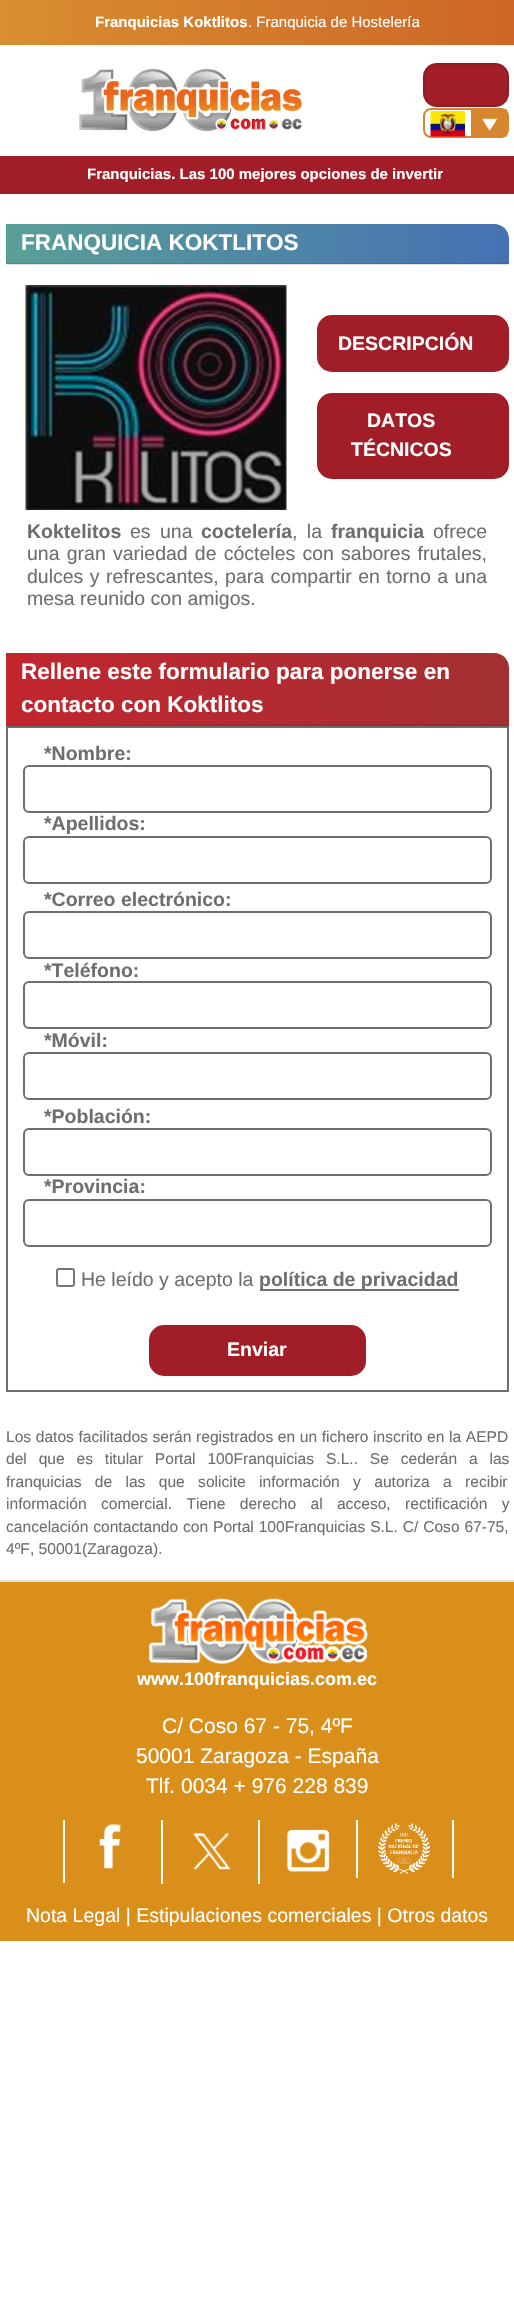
void draw(SkCanvas* canvas) {
    SkPaint paint;
    paint.setAntiAlias(true);
    auto spacedText = [&](const char* s, float x, float y, const SkFont& font, const SkPaint& ink, float letter, float word) {
        std::vector<SkGlyphID> glyphs(font.countText(s, strlen(s), SkTextEncoding::kUTF8));
        std::vector<float> xs(glyphs.size());
        font.textToGlyphs(s, strlen(s), SkTextEncoding::kUTF8, glyphs);
        font.getXPos(glyphs, xs, x);
        float extra = 0;
        for (size_t i = 0; i < glyphs.size(); i++) {
            xs[i] += extra;
            extra += letter + word * (glyphs[i] == font.unicharToGlyph(' '));
        }
        canvas->drawTextBlob(SkTextBlob::MakeFromPosHGlyphs(glyphs, xs, y, font), 0, 0, ink);
    };
    canvas->clear(0xFFFFFFFF);
    paint.setColor(0xFFE0E0E0);
    canvas->drawRect(SkRect::MakeXYWH(6, 264, 503, 1), paint);
    {
        const SkColor colors[] = {0xFFD98E30, 0xFFCD6628};
        const float stops[] = {0, 1};
        const SkPoint ends[] = {{0, 23}, {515, 22}};
        paint.setShader(SkGradientShader::MakeLinear(ends, colors, stops, 2, SkTileMode::kClamp));
        paint.setAlpha(255);
    }
    canvas->drawRect(SkRect::MakeXYWH(0, 0, 514, 45), paint);
    SkFont font1(fontMgr->matchFamilyStyle("Liberation Sans", SkFontStyle::Bold()), 15);
    font1.setSubpixel(true);
    paint.setShader(nullptr);
    paint.setColor(0xFFFFFFFF);
    canvas->drawString("Franquicias Koktlitos", 95, 27, font1, paint);
    SkFont font2(fontMgr->matchFamilyStyle("Liberation Sans", SkFontStyle::Normal()), 15);
    font2.setSubpixel(true);
    canvas->drawString(". Franquicia de Hostelería", 248, 27, font2, paint);
    canvas->drawImageRect(SkImages::DeferredFromEncodedData(SkData::MakeFromFileName("img1.png")), SkRect::MakeXYWH(79, 68, 223, 64), SkSamplingOptions());
    paint.setColor(0xFFA11E28);
    canvas->drawRoundRect(SkRect::MakeXYWH(423, 63, 86, 44), 14, 14, paint);
    paint.setStyle(SkPaint::kStroke_Style);
    paint.setStrokeWidth(2);
    paint.setColor(0x1A000000);
    canvas->drawRoundRect(SkRect::MakeXYWH(424, 64, 84, 42), 13, 13, paint);
    paint.setColor(0xFFD6862E);
    canvas->drawRoundRect(SkRect::MakeXYWH(424, 109, 84, 28), 7, 7, paint);
    canvas->drawImageRect(SkImages::DeferredFromEncodedData(SkData::MakeFromFileName("img2.png")), SkRect::MakeXYWH(430, 111, 35, 26), SkSamplingOptions());
    canvas->drawImageRect(SkImages::DeferredFromEncodedData(SkData::MakeFromFileName("img3.png")), SkRect::MakeXYWH(471, 109, 36, 28), SkSamplingOptions());
    paint.setStyle(SkPaint::kFill_Style);
    paint.setColor(0xFFA11E28);
    canvas->drawRect(SkRect::MakeXYWH(0, 156, 514, 38), paint);
    paint.setColor(0xFFFFFFFF);
    canvas->drawString("Franquicias. Las 100 mejores opciones de invertir", 87, 179, font1, paint);
    {
        const SkColor colors[] = {0xFF4571B3, 0xFF5A9F97};
        const float stops[] = {0, 1};
        const SkPoint ends[] = {{509, 243}, {6, 243}};
        paint.setShader(SkGradientShader::MakeLinear(ends, colors, stops, 2, SkTileMode::kClamp));
        paint.setAlpha(255);
    }
    canvas->drawPath(SkPathBuilder().moveTo(6, 224).lineTo(494, 224).cubicTo(502.5f, 224, 509, 230.5f, 509, 239).lineTo(509, 264).lineTo(6, 264).close().detach(), paint);
    {
        const SkColor colors[] = {0xFF3D639E, 0xFF4F8C85};
        const float stops[] = {0, 1};
        const SkPoint ends[] = {{509, 243}, {6, 243}};
        paint.setShader(SkGradientShader::MakeLinear(ends, colors, stops, 2, SkTileMode::kClamp));
        paint.setAlpha(255);
    }
    canvas->drawRect(SkRect::MakeXYWH(6, 263, 503, 1), paint);
    SkFont font3(fontMgr->matchFamilyStyle("Liberation Sans", SkFontStyle::Bold()), 22.5f);
    font3.setSubpixel(true);
    paint.setShader(nullptr);
    paint.setColor(0xFFFFFFFF);
    canvas->drawString("FRANQUICIA KOKTLITOS", 21, 250, font3, paint);
    canvas->drawImageRect(SkImages::DeferredFromEncodedData(SkData::MakeFromFileName("img4.png")), SkRect::MakeXYWH(25, 285, 262, 225), SkSamplingOptions());
    paint.setColor(0xFFA11E28);
    canvas->drawRoundRect(SkRect::MakeXYWH(318, 316, 190, 55), 14, 14, paint);
    paint.setStyle(SkPaint::kStroke_Style);
    canvas->drawRoundRect(SkRect::MakeXYWH(318, 316, 190, 55), 14, 14, paint);
    SkFont font4(fontMgr->matchFamilyStyle("Liberation Sans", SkFontStyle::Bold()), 19.5f);
    font4.setSubpixel(true);
    paint.setStyle(SkPaint::kFill_Style);
    paint.setColor(0xFFFFFFFF);
    canvas->drawString("DESCRIPCIÓN", 338, 350, font4, paint);
    paint.setColor(0xFFA11E28);
    canvas->drawRoundRect(SkRect::MakeXYWH(318, 394, 190, 84), 14, 14, paint);
    paint.setStyle(SkPaint::kStroke_Style);
    canvas->drawRoundRect(SkRect::MakeXYWH(318, 394, 190, 84), 14, 14, paint);
    paint.setStyle(SkPaint::kFill_Style);
    paint.setColor(0xFFFFFFFF);
    canvas->drawString("DATOS", 367, 427, font4, paint);
    canvas->drawString("TÉCNICOS", 351, 456, font4, paint);
    paint.setColor(0xFF6F6E6E);
    canvas->drawString("Koktelitos", 27, 538, font4, paint);
    SkFont font5(fontMgr->matchFamilyStyle("Liberation Sans", SkFontStyle::Normal()), 19.5f);
    font5.setSubpixel(true);
    spacedText("es una", 130, 538, font5, paint, 0, 4);
    canvas->drawString("coctelería", 201, 538, font4, paint);
    spacedText(", la", 292, 538, font5, paint, 0, 4);
    canvas->drawString("franquicia", 331, 538, font4, paint);
    canvas->drawString("ofrece", 433, 538, font5, paint);
    spacedText("una gran variedad de cócteles con sabores frutales,", 27, 560, font5, paint, 0, 1.75f);
    spacedText("dulces y refrescantes, para compartir en torno a una", 27, 583, font5, paint, 0, 1);
    canvas->drawString("mesa reunido con amigos.", 27, 605, font5, paint);
    {
        const SkColor colors[] = {0xFFC2262F, 0xFFA32F32};
        const float stops[] = {0, 1};
        const SkPoint ends[] = {{6, 689}, {509, 689}};
        paint.setShader(SkGradientShader::MakeLinear(ends, colors, stops, 2, SkTileMode::kClamp));
        paint.setAlpha(255);
    }
    canvas->drawPath(SkPathBuilder().moveTo(6, 653).lineTo(494, 653).cubicTo(502.5f, 653, 509, 659.5f, 509, 668).lineTo(509, 726).lineTo(6, 726).close().detach(), paint);
    {
        const SkColor colors[] = {0xFFAB2129, 0xFF8F292C};
        const float stops[] = {0, 1};
        const SkPoint ends[] = {{6, 689}, {509, 689}};
        paint.setShader(SkGradientShader::MakeLinear(ends, colors, stops, 2, SkTileMode::kClamp));
        paint.setAlpha(255);
    }
    canvas->drawRect(SkRect::MakeXYWH(6, 725, 503, 1), paint);
    paint.setShader(nullptr);
    paint.setColor(0xFFFFFFFF);
    canvas->drawString("Rellene este formulario para ponerse en", 21, 679, font3, paint);
    canvas->drawString("contacto con Koktlitos", 21, 712, font3, paint);
    paint.setStyle(SkPaint::kStroke_Style);
    paint.setColor(0xFF6F6E6E);
    canvas->drawRect(SkRect::MakeXYWH(7, 727, 501, 664), paint);
    paint.setStyle(SkPaint::kFill_Style);
    canvas->drawString("*Nombre:", 44, 760, font4, paint);
    paint.setStyle(SkPaint::kStroke_Style);
    canvas->drawRoundRect(SkRect::MakeXYWH(24, 766, 467, 46), 5, 5, paint);
    paint.setStyle(SkPaint::kFill_Style);
    canvas->drawString("*Apellidos:", 44, 830, font4, paint);
    paint.setStyle(SkPaint::kStroke_Style);
    canvas->drawRoundRect(SkRect::MakeXYWH(24, 837, 467, 46), 5, 5, paint);
    paint.setStyle(SkPaint::kFill_Style);
    canvas->drawString("*Correo electrónico:", 44, 906, font4, paint);
    paint.setStyle(SkPaint::kStroke_Style);
    canvas->drawRoundRect(SkRect::MakeXYWH(24, 912, 467, 46), 5, 5, paint);
    paint.setStyle(SkPaint::kFill_Style);
    canvas->drawString("*Teléfono:", 44, 977, font4, paint);
    paint.setStyle(SkPaint::kStroke_Style);
    canvas->drawRoundRect(SkRect::MakeXYWH(24, 982, 467, 46), 5, 5, paint);
    paint.setStyle(SkPaint::kFill_Style);
    canvas->drawString("*Móvil:", 44, 1047, font4, paint);
    paint.setStyle(SkPaint::kStroke_Style);
    canvas->drawRoundRect(SkRect::MakeXYWH(24, 1053, 467, 46), 5, 5, paint);
    paint.setStyle(SkPaint::kFill_Style);
    canvas->drawString("*Población:", 44, 1123, font4, paint);
    paint.setStyle(SkPaint::kStroke_Style);
    canvas->drawRoundRect(SkRect::MakeXYWH(24, 1129, 467, 46), 5, 5, paint);
    paint.setStyle(SkPaint::kFill_Style);
    canvas->drawString("*Provincia:", 44, 1193, font4, paint);
    paint.setStyle(SkPaint::kStroke_Style);
    canvas->drawRoundRect(SkRect::MakeXYWH(24, 1200, 467, 46), 5, 5, paint);
    paint.setColor(0xFF767676);
    canvas->drawRoundRect(SkRect::MakeXYWH(57, 1269, 17, 17), 2, 2, paint);
    paint.setStyle(SkPaint::kFill_Style);
    paint.setColor(0xFF6F6E6E);
    canvas->drawString("He leído y acepto la", 81, 1286, font5, paint);
    canvas->drawRect(SkRect::MakeXYWH(260, 1289, 199, 2), paint);
    canvas->drawString("política de privacidad", 259, 1286, font4, paint);
    paint.setColor(0xFFA11E28);
    canvas->drawRoundRect(SkRect::MakeXYWH(150, 1326, 215, 49), 14, 14, paint);
    paint.setStyle(SkPaint::kStroke_Style);
    canvas->drawRoundRect(SkRect::MakeXYWH(150, 1326, 215, 49), 14, 14, paint);
    paint.setStyle(SkPaint::kFill_Style);
    paint.setColor(0xFFFFFFFF);
    canvas->drawString("Enviar", 227, 1356, font4, paint);
    SkFont font6(fontMgr->matchFamilyStyle("Liberation Sans", SkFontStyle::Normal()), 15.6f);
    font6.setSubpixel(true);
    paint.setColor(0xFF6F6E6E);
    spacedText("Los datos facilitados serán registrados en un fichero inscrito en la AEPD", 6, 1442, font6, paint, 0, 0.25f);
    spacedText("del que es titular Portal 100Franquicias S.L.. Se cederán a las", 6, 1464, font6, paint, 0, 7.5f);
    spacedText("franquicias de las que solicite información y autoriza a recibir", 6, 1487, font6, paint, 0, 9);
    spacedText("información comercial. Tiene derecho al acceso, rectificación y", 6, 1509, font6, paint, 0, 10);
    spacedText("cancelación contactando con Portal 100Franquicias S.L. C/ Coso 67-75,", 6, 1532, font6, paint, 0, 0.5f);
    canvas->drawString("4ºF, 50001(Zaragoza).", 6, 1554, font6, paint);
    paint.setColor(0xFFDB8F1B);
    canvas->drawRect(SkRect::MakeXYWH(0, 1582, 514, 359), paint);
    paint.setColor(0xFFDEE2E6);
    canvas->drawRect(SkRect::MakeXYWH(0, 1580, 514, 2), paint);
    canvas->drawImageRect(SkImages::DeferredFromEncodedData(SkData::MakeFromFileName("img5.png")), SkRect::MakeXYWH(149, 1598, 219, 66), SkSamplingOptions());
    SkFont font7(fontMgr->matchFamilyStyle("Liberation Sans", SkFontStyle::Bold()), 18);
    font7.setSubpixel(true);
    paint.setColor(0xFFFFFFFF);
    canvas->drawString("www.100franquicias.com.ec", 137, 1685, font7, paint);
    SkFont font8(fontMgr->matchFamilyStyle("Liberation Sans", SkFontStyle::Normal()), 21);
    font8.setSubpixel(true);
    canvas->drawString("C/ Coso 67 - 75, 4ºF", 162, 1733, font8, paint);
    canvas->drawString("50001 Zaragoza - España", 136, 1763, font8, paint);
    canvas->drawString("Tlf. 0034 + 976 228 839", 146, 1793, font8, paint);
    canvas->drawRect(SkRect::MakeXYWH(63, 1820, 2, 63), paint);
    canvas->drawImageRect(SkImages::DeferredFromEncodedData(SkData::MakeFromFileName("img6.png")), SkRect::MakeXYWH(99, 1824, 23, 45), SkSamplingOptions());
    canvas->drawRect(SkRect::MakeXYWH(161, 1820, 2, 64), paint);
    canvas->drawImageRect(SkImages::DeferredFromEncodedData(SkData::MakeFromFileName("img7.png")), SkRect::MakeXYWH(193, 1832, 38, 38), SkSamplingOptions());
    canvas->drawRect(SkRect::MakeXYWH(258, 1820, 2, 64), paint);
    canvas->drawImageRect(SkImages::DeferredFromEncodedData(SkData::MakeFromFileName("img8.png")), SkRect::MakeXYWH(287, 1829, 43, 43), SkSamplingOptions());
    canvas->drawRect(SkRect::MakeXYWH(452, 1820, 2, 58), paint);
    canvas->drawRect(SkRect::MakeXYWH(356, 1820, 2, 58), paint);
    canvas->drawImageRect(SkImages::DeferredFromEncodedData(SkData::MakeFromFileName("img9.png")), SkRect::MakeXYWH(377, 1823, 54, 51), SkSamplingOptions());
    canvas->drawString("Nota Legal | Estipulaciones comerciales | Otros datos", 26, 1922, font5, paint);
}
